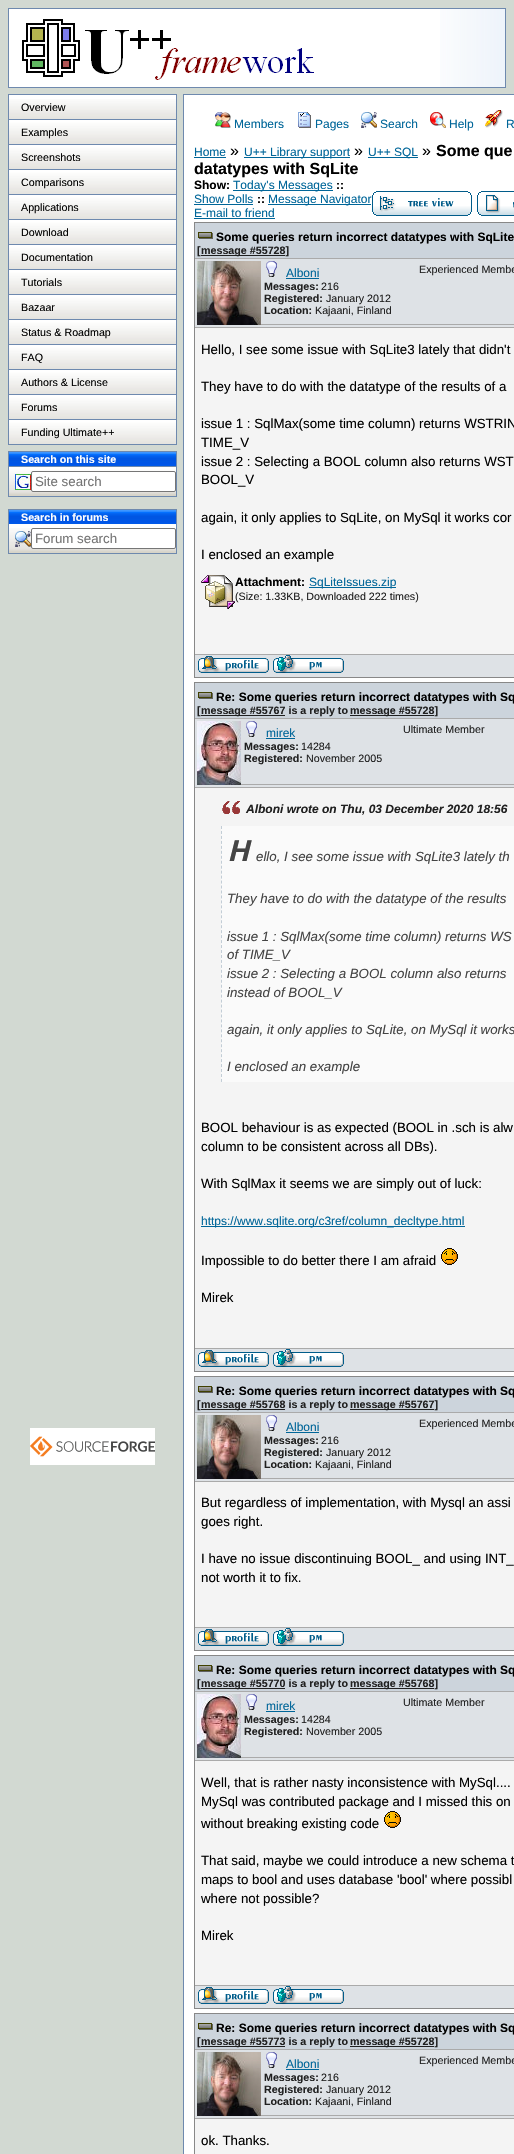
void draw(SkCanvas* canvas) {
    SkPaint paint;
    paint.setAntiAlias(true);
    canvas->clear(0xFFD2D9D2);
    paint.setColor(0xFFFFFFFF);
    canvas->drawRect(SkRect::MakeXYWH(9, 9, 431, 78), paint);
    paint.setStyle(SkPaint::kStroke_Style);
    paint.setStrokeWidth(1);
    paint.setColor(0xFF6E89AE);
    canvas->drawRect(SkRect::MakeXYWH(8.5f, 8.5f, 497, 79), paint);
    canvas->drawImageRect(SkImages::DeferredFromEncodedData(SkData::MakeFromFileName("img1.png")), SkRect::MakeXYWH(22, 19, 292, 61), SkSamplingOptions());
    canvas->drawImageRect(SkImages::DeferredFromEncodedData(SkData::MakeFromFileName("img2.png")), SkRect::MakeXYWH(440, 9, 65, 78), SkSamplingOptions());
    paint.setStyle(SkPaint::kFill_Style);
    paint.setColor(0xFFFFFFFF);
    canvas->drawRect(SkRect::MakeXYWH(9, 95, 167, 4), paint);
    paint.setStyle(SkPaint::kStroke_Style);
    paint.setColor(0xFF6E89AE);
    canvas->drawRect(SkRect::MakeXYWH(8.5f, 94.5f, 168, 350), paint);
    canvas->drawImageRect(SkImages::DeferredFromEncodedData(SkData::MakeFromFileName("img3.png")), SkRect::MakeXYWH(9, 99, 167, 20), SkSamplingOptions());
    SkFont font1(fontMgr->matchFamilyStyle("Liberation Sans", SkFontStyle::Normal()), 10.7f);
    font1.setSubpixel(true);
    paint.setStyle(SkPaint::kFill_Style);
    paint.setColor(0xFF000000);
    canvas->drawString("Overview", 21, 111, font1, paint);
    canvas->drawImageRect(SkImages::DeferredFromEncodedData(SkData::MakeFromFileName("img4.png")), SkRect::MakeXYWH(9, 120, 167, 24), SkSamplingOptions());
    paint.setColor(0xFF6E89AE);
    canvas->drawRect(SkRect::MakeXYWH(9, 119, 167, 1), paint);
    paint.setColor(0xFF000000);
    canvas->drawString("Examples", 21, 136, font1, paint);
    canvas->drawImageRect(SkImages::DeferredFromEncodedData(SkData::MakeFromFileName("img4.png")), SkRect::MakeXYWH(9, 145, 167, 24), SkSamplingOptions());
    paint.setColor(0xFF6E89AE);
    canvas->drawRect(SkRect::MakeXYWH(9, 144, 167, 1), paint);
    paint.setColor(0xFF000000);
    canvas->drawString("Screenshots", 21, 161, font1, paint);
    canvas->drawImageRect(SkImages::DeferredFromEncodedData(SkData::MakeFromFileName("img4.png")), SkRect::MakeXYWH(9, 170, 167, 24), SkSamplingOptions());
    paint.setColor(0xFF6E89AE);
    canvas->drawRect(SkRect::MakeXYWH(9, 169, 167, 1), paint);
    paint.setColor(0xFF000000);
    canvas->drawString("Comparisons", 21, 186, font1, paint);
    canvas->drawImageRect(SkImages::DeferredFromEncodedData(SkData::MakeFromFileName("img4.png")), SkRect::MakeXYWH(9, 195, 167, 24), SkSamplingOptions());
    paint.setColor(0xFF6E89AE);
    canvas->drawRect(SkRect::MakeXYWH(9, 194, 167, 1), paint);
    paint.setColor(0xFF000000);
    canvas->drawString("Applications", 21, 211, font1, paint);
    canvas->drawImageRect(SkImages::DeferredFromEncodedData(SkData::MakeFromFileName("img4.png")), SkRect::MakeXYWH(9, 220, 167, 24), SkSamplingOptions());
    paint.setColor(0xFF6E89AE);
    canvas->drawRect(SkRect::MakeXYWH(9, 219, 167, 1), paint);
    paint.setColor(0xFF000000);
    canvas->drawString("Download", 21, 236, font1, paint);
    canvas->drawImageRect(SkImages::DeferredFromEncodedData(SkData::MakeFromFileName("img4.png")), SkRect::MakeXYWH(9, 245, 167, 24), SkSamplingOptions());
    paint.setColor(0xFF6E89AE);
    canvas->drawRect(SkRect::MakeXYWH(9, 244, 167, 1), paint);
    paint.setColor(0xFF000000);
    canvas->drawString("Documentation", 21, 261, font1, paint);
    canvas->drawImageRect(SkImages::DeferredFromEncodedData(SkData::MakeFromFileName("img4.png")), SkRect::MakeXYWH(9, 270, 167, 24), SkSamplingOptions());
    paint.setColor(0xFF6E89AE);
    canvas->drawRect(SkRect::MakeXYWH(9, 269, 167, 1), paint);
    paint.setColor(0xFF000000);
    canvas->drawString("Tutorials", 21, 286, font1, paint);
    canvas->drawImageRect(SkImages::DeferredFromEncodedData(SkData::MakeFromFileName("img4.png")), SkRect::MakeXYWH(9, 295, 167, 24), SkSamplingOptions());
    paint.setColor(0xFF6E89AE);
    canvas->drawRect(SkRect::MakeXYWH(9, 294, 167, 1), paint);
    paint.setColor(0xFF000000);
    canvas->drawString("Bazaar", 21, 311, font1, paint);
    canvas->drawImageRect(SkImages::DeferredFromEncodedData(SkData::MakeFromFileName("img4.png")), SkRect::MakeXYWH(9, 320, 167, 24), SkSamplingOptions());
    paint.setColor(0xFF6E89AE);
    canvas->drawRect(SkRect::MakeXYWH(9, 319, 167, 1), paint);
    paint.setColor(0xFF000000);
    canvas->drawString("Status & Roadmap", 21, 336, font1, paint);
    canvas->drawImageRect(SkImages::DeferredFromEncodedData(SkData::MakeFromFileName("img4.png")), SkRect::MakeXYWH(9, 345, 167, 24), SkSamplingOptions());
    paint.setColor(0xFF6E89AE);
    canvas->drawRect(SkRect::MakeXYWH(9, 344, 167, 1), paint);
    paint.setColor(0xFF000000);
    canvas->drawString("FAQ", 21, 361, font1, paint);
    canvas->drawImageRect(SkImages::DeferredFromEncodedData(SkData::MakeFromFileName("img4.png")), SkRect::MakeXYWH(9, 370, 167, 24), SkSamplingOptions());
    paint.setColor(0xFF6E89AE);
    canvas->drawRect(SkRect::MakeXYWH(9, 369, 167, 1), paint);
    paint.setColor(0xFF000000);
    canvas->drawString("Authors & License", 21, 386, font1, paint);
    canvas->drawImageRect(SkImages::DeferredFromEncodedData(SkData::MakeFromFileName("img4.png")), SkRect::MakeXYWH(9, 395, 167, 24), SkSamplingOptions());
    paint.setColor(0xFF6E89AE);
    canvas->drawRect(SkRect::MakeXYWH(9, 394, 167, 1), paint);
    paint.setColor(0xFF000000);
    canvas->drawString("Forums", 21, 411, font1, paint);
    canvas->drawImageRect(SkImages::DeferredFromEncodedData(SkData::MakeFromFileName("img4.png")), SkRect::MakeXYWH(9, 420, 167, 24), SkSamplingOptions());
    paint.setColor(0xFF6E89AE);
    canvas->drawRect(SkRect::MakeXYWH(9, 419, 167, 1), paint);
    paint.setColor(0xFF000000);
    canvas->drawString("Funding Ultimate++", 21, 436, font1, paint);
    paint.setStyle(SkPaint::kStroke_Style);
    paint.setColor(0xFF6E89AE);
    canvas->drawRect(SkRect::MakeXYWH(8.5f, 451.5f, 168, 45), paint);
    canvas->drawImageRect(SkImages::DeferredFromEncodedData(SkData::MakeFromFileName("img5.png")), SkRect::MakeXYWH(9, 452, 167, 14), SkSamplingOptions());
    SkFont font2(fontMgr->matchFamilyStyle("Liberation Sans", SkFontStyle::Bold()), 10.7f);
    font2.setSubpixel(true);
    paint.setStyle(SkPaint::kFill_Style);
    paint.setColor(0xFFFFFFFF);
    canvas->drawString("Search on this site", 21, 463, font2, paint);
    canvas->drawImageRect(SkImages::DeferredFromEncodedData(SkData::MakeFromFileName("img6.png")), SkRect::MakeXYWH(9, 467, 167, 29), SkSamplingOptions());
    paint.setColor(0xFF6E89AE);
    canvas->drawRect(SkRect::MakeXYWH(9, 466, 167, 1), paint);
    canvas->drawImageRect(SkImages::DeferredFromEncodedData(SkData::MakeFromFileName("img7.png")), SkRect::MakeXYWH(15, 474, 16, 16), SkSamplingOptions());
    paint.setColor(0xFFFFFFFF);
    canvas->drawRoundRect(SkRect::MakeXYWH(31.5f, 471.5f, 144, 20), 1.5f, 1.5f, paint);
    paint.setStyle(SkPaint::kStroke_Style);
    paint.setColor(0xFF767676);
    canvas->drawRoundRect(SkRect::MakeXYWH(31.5f, 471.5f, 144, 20), 1.5f, 1.5f, paint);
    SkFont font3(fontMgr->matchFamilyStyle("Liberation Sans", SkFontStyle::Normal()), 13.3f);
    font3.setSubpixel(true);
    paint.setStyle(SkPaint::kFill_Style);
    paint.setColor(0xFF757575);
    canvas->drawString("Site search", 35, 486, font3, paint);
    paint.setColor(0xFFFFFFFF);
    canvas->drawRect(SkRect::MakeXYWH(9, 524, 167, 4), paint);
    paint.setStyle(SkPaint::kStroke_Style);
    paint.setColor(0xFF6E89AE);
    canvas->drawRect(SkRect::MakeXYWH(8.5f, 509.5f, 168, 44), paint);
    canvas->drawImageRect(SkImages::DeferredFromEncodedData(SkData::MakeFromFileName("img5.png")), SkRect::MakeXYWH(9, 510, 167, 14), SkSamplingOptions());
    paint.setStyle(SkPaint::kFill_Style);
    paint.setColor(0xFFFFFFFF);
    canvas->drawString("Search in forums", 21, 521, font2, paint);
    canvas->drawImageRect(SkImages::DeferredFromEncodedData(SkData::MakeFromFileName("img8.png")), SkRect::MakeXYWH(9, 528, 167, 25), SkSamplingOptions());
    canvas->drawImageRect(SkImages::DeferredFromEncodedData(SkData::MakeFromFileName("img9.png")), SkRect::MakeXYWH(15, 531, 16, 16), SkSamplingOptions());
    canvas->drawRoundRect(SkRect::MakeXYWH(31.5f, 528.5f, 144, 20), 1.5f, 1.5f, paint);
    paint.setStyle(SkPaint::kStroke_Style);
    paint.setColor(0xFF767676);
    canvas->drawRoundRect(SkRect::MakeXYWH(31.5f, 528.5f, 144, 20), 1.5f, 1.5f, paint);
    paint.setStyle(SkPaint::kFill_Style);
    paint.setColor(0xFF757575);
    canvas->drawString("Forum search", 35, 543, font3, paint);
    canvas->drawImageRect(SkImages::DeferredFromEncodedData(SkData::MakeFromFileName("img10.png")), SkRect::MakeXYWH(30, 1428, 125, 37), SkSamplingOptions());
    paint.setColor(0xFFFFFFFF);
    canvas->drawRect(SkRect::MakeXYWH(183.5f, 94.5f, 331, 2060), paint);
    paint.setStyle(SkPaint::kStroke_Style);
    paint.setColor(0xFF6E89AE);
    canvas->drawRect(SkRect::MakeXYWH(183.5f, 94.5f, 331, 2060), paint);
    canvas->drawImageRect(SkImages::DeferredFromEncodedData(SkData::MakeFromFileName("img11.png")), SkRect::MakeXYWH(215, 112, 16, 16), SkSamplingOptions());
    SkFont font4(fontMgr->matchFamilyStyle("Liberation Sans", SkFontStyle::Normal()), 12);
    font4.setSubpixel(true);
    paint.setStyle(SkPaint::kFill_Style);
    paint.setColor(0xFF006699);
    canvas->drawString("Members", 234, 128, font4, paint);
    canvas->drawImageRect(SkImages::DeferredFromEncodedData(SkData::MakeFromFileName("img12.png")), SkRect::MakeXYWH(298, 112, 13, 16), SkSamplingOptions());
    canvas->drawString("Pages", 315, 128, font4, paint);
    canvas->drawImageRect(SkImages::DeferredFromEncodedData(SkData::MakeFromFileName("img13.png")), SkRect::MakeXYWH(361, 112, 16, 16), SkSamplingOptions());
    canvas->drawString("Search", 380, 128, font4, paint);
    canvas->drawImageRect(SkImages::DeferredFromEncodedData(SkData::MakeFromFileName("img14.png")), SkRect::MakeXYWH(430, 112, 16, 16), SkSamplingOptions());
    canvas->drawString("Help", 449, 128, font4, paint);
    canvas->drawImageRect(SkImages::DeferredFromEncodedData(SkData::MakeFromFileName("img15.png")), SkRect::MakeXYWH(485, 110, 18, 18), SkSamplingOptions());
    canvas->drawString("R", 506, 128, font4, paint);
    canvas->drawString("Home", 194, 156, font4, paint);
    canvas->drawRect(SkRect::MakeXYWH(194, 157, 32, 1), paint);
    SkFont font5(fontMgr->matchFamilyStyle("Liberation Sans", SkFontStyle::Normal()), 16);
    font5.setSubpixel(true);
    paint.setColor(0xFF000000);
    canvas->drawString("»", 230, 156, font5, paint);
    paint.setColor(0xFF006699);
    canvas->drawRect(SkRect::MakeXYWH(244, 157, 106, 1), paint);
    canvas->drawString("U++ Library support", 244, 156, font4, paint);
    paint.setColor(0xFF000000);
    canvas->drawString("»", 354, 156, font5, paint);
    paint.setColor(0xFF006699);
    canvas->drawRect(SkRect::MakeXYWH(368, 157, 50, 1), paint);
    canvas->drawString("U++ SQL", 368, 156, font4, paint);
    paint.setColor(0xFF000000);
    canvas->drawString("»", 422, 156, font5, paint);
    SkFont font6(fontMgr->matchFamilyStyle("Liberation Sans", SkFontStyle::Bold()), 16);
    font6.setSubpixel(true);
    canvas->drawString("Some que", 436, 156, font6, paint);
    canvas->drawString("datatypes with SqLite", 194, 174, font6, paint);
    SkFont font7(fontMgr->matchFamilyStyle("Liberation Sans", SkFontStyle::Bold()), 12);
    font7.setSubpixel(true);
    canvas->drawString("Show:", 194, 189, font7, paint);
    paint.setColor(0xFF006699);
    canvas->drawRect(SkRect::MakeXYWH(233, 190, 100, 1), paint);
    canvas->drawString("Today's Messages", 233, 189, font4, paint);
    paint.setColor(0xFF000000);
    canvas->drawString("::", 336, 189, font7, paint);
    paint.setColor(0xFF006699);
    canvas->drawString("Show Polls", 194, 203, font4, paint);
    canvas->drawRect(SkRect::MakeXYWH(194, 204, 59, 1), paint);
    paint.setColor(0xFF000000);
    canvas->drawString("::", 257, 203, font7, paint);
    paint.setColor(0xFF006699);
    canvas->drawRect(SkRect::MakeXYWH(268, 204, 103, 1), paint);
    canvas->drawString("Message Navigator", 268, 203, font4, paint);
    canvas->drawString("E-mail to friend", 194, 217, font4, paint);
    canvas->drawRect(SkRect::MakeXYWH(194, 218, 81, 1), paint);
    canvas->drawImageRect(SkImages::DeferredFromEncodedData(SkData::MakeFromFileName("img16.png")), SkRect::MakeXYWH(372, 191, 100, 25), SkSamplingOptions());
    canvas->drawImageRect(SkImages::DeferredFromEncodedData(SkData::MakeFromFileName("img17.png")), SkRect::MakeXYWH(477, 191, 37, 25), SkSamplingOptions());
    paint.setStyle(SkPaint::kStroke_Style);
    paint.setColor(0xFF888888);
    canvas->drawRect(SkRect::MakeXYWH(194.5f, 222.5f, 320, 455), paint);
    paint.setStyle(SkPaint::kFill_Style);
    paint.setColor(0xFFCCD4DC);
    canvas->drawRect(SkRect::MakeXYWH(195, 223, 319, 35), paint);
    paint.setColor(0xFFAAAAAA);
    canvas->drawRect(SkRect::MakeXYWH(195, 258, 319, 1), paint);
    canvas->drawImageRect(SkImages::DeferredFromEncodedData(SkData::MakeFromFileName("img18.png")), SkRect::MakeXYWH(198, 232, 15, 7), SkSamplingOptions());
    paint.setColor(0xFF000000);
    canvas->drawString("Some queries return incorrect datatypes with SqLite", 216, 241, font7, paint);
    paint.setColor(0xFF202020);
    canvas->drawString("[", 197, 254, font2, paint);
    canvas->drawRect(SkRect::MakeXYWH(201, 255, 84, 1), paint);
    canvas->drawString("message #55728]", 201, 254, font2, paint);
    paint.setColor(0xFFDEE2E6);
    canvas->drawRect(SkRect::MakeXYWH(195, 259, 319, 68), paint);
    paint.setColor(0xFFAAAAAA);
    canvas->drawRect(SkRect::MakeXYWH(195, 327, 319, 1), paint);
    canvas->drawRect(SkRect::MakeXYWH(261, 324, 253, 1), paint);
    canvas->drawImageRect(SkImages::DeferredFromEncodedData(SkData::MakeFromFileName("img19.png")), SkRect::MakeXYWH(197, 261, 64, 64), SkSamplingOptions());
    canvas->drawImageRect(SkImages::DeferredFromEncodedData(SkData::MakeFromFileName("img20.png")), SkRect::MakeXYWH(266, 261, 11, 16), SkSamplingOptions());
    paint.setColor(0xFF006699);
    canvas->drawString("Alboni", 286, 277, font4, paint);
    canvas->drawRect(SkRect::MakeXYWH(286, 278, 33, 1), paint);
    paint.setColor(0xFF202020);
    canvas->drawString("Messages:", 264, 290, font2, paint);
    canvas->drawString("216", 321, 290, font1, paint);
    canvas->drawString("Registered:", 264, 302, font2, paint);
    canvas->drawString("January 2012", 326, 302, font1, paint);
    canvas->drawString("Location:", 264, 314, font2, paint);
    canvas->drawString("Kajaani, Finland", 315, 314, font1, paint);
    canvas->drawString("Experienced Membe", 419, 273, font1, paint);
    paint.setColor(0xFFF4F4F4);
    canvas->drawRect(SkRect::MakeXYWH(195, 328, 319, 326), paint);
    paint.setColor(0xFFAAAAAA);
    canvas->drawRect(SkRect::MakeXYWH(195, 654, 319, 1), paint);
    paint.setColor(0xFF000000);
    canvas->drawString("Hello, I see some issue with SqLite3 lately that didn't", 201, 354, font3, paint);
    canvas->drawString("They have to do with the datatype of the results of a", 201, 391, font3, paint);
    canvas->drawString("issue 1 : SqlMax(some time column) returns WSTRIN", 201, 428, font3, paint);
    canvas->drawString("TIME_V", 201, 447, font3, paint);
    canvas->drawString("issue 2 : Selecting a BOOL column also returns WST", 201, 466, font3, paint);
    canvas->drawString("BOOL_V", 201, 484, font3, paint);
    canvas->drawString("again, it only applies to SqLite, on MySql it works cor", 201, 522, font3, paint);
    canvas->drawString("I enclosed an example", 201, 559, font3, paint);
    canvas->drawImageRect(SkImages::DeferredFromEncodedData(SkData::MakeFromFileName("img21.png")), SkRect::MakeXYWH(201, 575, 34, 34), SkSamplingOptions());
    canvas->drawString("Attachment:", 235, 586, font7, paint);
    paint.setColor(0xFF006699);
    canvas->drawRect(SkRect::MakeXYWH(309, 587, 87, 1), paint);
    canvas->drawString("SqLiteIssues.zip", 309, 586, font4, paint);
    paint.setColor(0xFF202020);
    canvas->drawString("(Size: 1.33KB, Downloaded 222 times)", 235, 600, font1, paint);
    paint.setColor(0xFFDEE2E6);
    canvas->drawRect(SkRect::MakeXYWH(195, 655, 319, 22), paint);
    canvas->drawImageRect(SkImages::DeferredFromEncodedData(SkData::MakeFromFileName("img22.png")), SkRect::MakeXYWH(198, 656, 71, 17), SkSamplingOptions());
    canvas->drawImageRect(SkImages::DeferredFromEncodedData(SkData::MakeFromFileName("img23.png")), SkRect::MakeXYWH(273, 655, 71, 18), SkSamplingOptions());
    paint.setStyle(SkPaint::kStroke_Style);
    paint.setColor(0xFF888888);
    canvas->drawRect(SkRect::MakeXYWH(194.5f, 682.5f, 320, 689), paint);
    paint.setStyle(SkPaint::kFill_Style);
    paint.setColor(0xFFCCD4DC);
    canvas->drawRect(SkRect::MakeXYWH(195, 683, 319, 35), paint);
    paint.setColor(0xFFAAAAAA);
    canvas->drawRect(SkRect::MakeXYWH(195, 718, 319, 1), paint);
    canvas->drawImageRect(SkImages::DeferredFromEncodedData(SkData::MakeFromFileName("img18.png")), SkRect::MakeXYWH(198, 692, 15, 7), SkSamplingOptions());
    paint.setColor(0xFF000000);
    canvas->drawString("Re: Some queries return incorrect datatypes with Sq", 216, 701, font7, paint);
    paint.setColor(0xFF202020);
    canvas->drawString("[", 197, 714, font2, paint);
    canvas->drawRect(SkRect::MakeXYWH(201, 715, 84, 1), paint);
    canvas->drawString("message #55767 is a reply to", 201, 714, font2, paint);
    canvas->drawRect(SkRect::MakeXYWH(350, 715, 84, 1), paint);
    canvas->drawString("message #55728]", 350, 714, font2, paint);
    paint.setColor(0xFFDEE2E6);
    canvas->drawRect(SkRect::MakeXYWH(195, 719, 319, 68), paint);
    paint.setColor(0xFFAAAAAA);
    canvas->drawRect(SkRect::MakeXYWH(195, 787, 319, 1), paint);
    canvas->drawRect(SkRect::MakeXYWH(241, 784, 273, 1), paint);
    canvas->drawImageRect(SkImages::DeferredFromEncodedData(SkData::MakeFromFileName("img24.png")), SkRect::MakeXYWH(197, 721, 44, 64), SkSamplingOptions());
    canvas->drawImageRect(SkImages::DeferredFromEncodedData(SkData::MakeFromFileName("img20.png")), SkRect::MakeXYWH(246, 721, 11, 16), SkSamplingOptions());
    paint.setColor(0xFF006699);
    canvas->drawString("mirek", 266, 737, font4, paint);
    canvas->drawRect(SkRect::MakeXYWH(266, 738, 29, 1), paint);
    paint.setColor(0xFF202020);
    canvas->drawString("Messages:", 244, 750, font2, paint);
    canvas->drawString("14284", 301, 750, font1, paint);
    canvas->drawString("Registered:", 244, 762, font2, paint);
    canvas->drawString("November 2005", 306, 762, font1, paint);
    canvas->drawString("Ultimate Member", 403, 733, font1, paint);
    paint.setColor(0xFFF4F4F4);
    canvas->drawRect(SkRect::MakeXYWH(195, 788, 319, 560), paint);
    paint.setColor(0xFFAAAAAA);
    canvas->drawRect(SkRect::MakeXYWH(195, 1348, 319, 1), paint);
    canvas->drawImageRect(SkImages::DeferredFromEncodedData(SkData::MakeFromFileName("img25.png")), SkRect::MakeXYWH(222, 801, 18, 13), SkSamplingOptions());
    SkFont font8(fontMgr->matchFamilyStyle("Liberation Sans", SkFontStyle::BoldItalic()), 12);
    font8.setSubpixel(true);
    paint.setColor(0xFF202020);
    canvas->drawString("Alboni wrote on Thu, 03 December 2020 18:56", 246, 813, font8, paint);
    paint.setColor(0xFFFAFAFA);
    canvas->drawRect(SkRect::MakeXYWH(221, 826, 293, 256), paint);
    paint.setStyle(SkPaint::kStroke_Style);
    paint.setColor(0xFFC2CDD6);
    paint.setPathEffect(SkDashPathEffect::Make({{3, 1.96f}}, 0));
    canvas->drawPath(SkPathBuilder().moveTo(221.5f, 826).lineTo(221.5f, 1082).detach(), paint);
    paint.setPathEffect(nullptr);
    SkFont font9(fontMgr->matchFamilyStyle("Noto Sans", SkFontStyle::BoldItalic()), 29);
    font9.setSubpixel(true);
    paint.setStyle(SkPaint::kFill_Style);
    paint.setColor(0xFF444444);
    canvas->drawString("H", 227, 861, font9, paint);
    SkFont font10(fontMgr->matchFamilyStyle("Liberation Sans", SkFontStyle::Italic()), 13.3f);
    font10.setSubpixel(true);
    canvas->drawString("ello, I see some issue with SqLite3 lately th", 256, 861, font10, paint);
    canvas->drawString("They have to do with the datatype of the results", 227, 903, font10, paint);
    canvas->drawString("issue 1 : SqlMax(some time column) returns WS", 227, 941, font10, paint);
    canvas->drawString("of TIME_V", 227, 959, font10, paint);
    canvas->drawString("issue 2 : Selecting a BOOL column also returns", 227, 978, font10, paint);
    canvas->drawString("instead of BOOL_V", 227, 997, font10, paint);
    canvas->drawString("again, it only applies to SqLite, on MySql it works", 227, 1034, font10, paint);
    canvas->drawString("I enclosed an example", 227, 1071, font10, paint);
    paint.setColor(0xFF000000);
    canvas->drawString("BOOL behaviour is as expected (BOOL in .sch is alw", 201, 1132, font3, paint);
    canvas->drawString("column to be consistent across all DBs).", 201, 1151, font3, paint);
    canvas->drawString("With SqlMax it seems we are simply out of luck:", 201, 1188, font3, paint);
    paint.setColor(0xFF006699);
    canvas->drawRect(SkRect::MakeXYWH(201, 1226, 264, 1), paint);
    canvas->drawString("https://www.sqlite.org/c3ref/column_decltype.html", 201, 1225, font4, paint);
    paint.setColor(0xFF000000);
    canvas->drawString("Impossible to do better there I am afraid", 201, 1265, font3, paint);
    canvas->drawImageRect(SkImages::DeferredFromEncodedData(SkData::MakeFromFileName("img26.png")), SkRect::MakeXYWH(441, 1248, 17, 17), SkSamplingOptions());
    canvas->drawString("Mirek", 201, 1302, font3, paint);
    paint.setColor(0xFFDEE2E6);
    canvas->drawRect(SkRect::MakeXYWH(195, 1349, 319, 22), paint);
    canvas->drawImageRect(SkImages::DeferredFromEncodedData(SkData::MakeFromFileName("img22.png")), SkRect::MakeXYWH(198, 1350, 71, 17), SkSamplingOptions());
    canvas->drawImageRect(SkImages::DeferredFromEncodedData(SkData::MakeFromFileName("img23.png")), SkRect::MakeXYWH(273, 1349, 71, 18), SkSamplingOptions());
    paint.setStyle(SkPaint::kStroke_Style);
    paint.setColor(0xFF888888);
    canvas->drawRect(SkRect::MakeXYWH(194.5f, 1376.5f, 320, 274), paint);
    paint.setStyle(SkPaint::kFill_Style);
    paint.setColor(0xFFCCD4DC);
    canvas->drawRect(SkRect::MakeXYWH(195, 1377, 319, 35), paint);
    paint.setColor(0xFFAAAAAA);
    canvas->drawRect(SkRect::MakeXYWH(195, 1412, 319, 1), paint);
    canvas->drawImageRect(SkImages::DeferredFromEncodedData(SkData::MakeFromFileName("img18.png")), SkRect::MakeXYWH(198, 1386, 15, 7), SkSamplingOptions());
    paint.setColor(0xFF000000);
    canvas->drawString("Re: Some queries return incorrect datatypes with Sq", 216, 1395, font7, paint);
    paint.setColor(0xFF202020);
    canvas->drawString("[", 197, 1408, font2, paint);
    canvas->drawRect(SkRect::MakeXYWH(201, 1409, 84, 1), paint);
    canvas->drawString("message #55768 is a reply to", 201, 1408, font2, paint);
    canvas->drawRect(SkRect::MakeXYWH(350, 1409, 84, 1), paint);
    canvas->drawString("message #55767]", 350, 1408, font2, paint);
    paint.setColor(0xFFDEE2E6);
    canvas->drawRect(SkRect::MakeXYWH(195, 1413, 319, 68), paint);
    paint.setColor(0xFFAAAAAA);
    canvas->drawRect(SkRect::MakeXYWH(195, 1481, 319, 1), paint);
    canvas->drawRect(SkRect::MakeXYWH(261, 1478, 253, 1), paint);
    canvas->drawImageRect(SkImages::DeferredFromEncodedData(SkData::MakeFromFileName("img19.png")), SkRect::MakeXYWH(197, 1415, 64, 64), SkSamplingOptions());
    canvas->drawImageRect(SkImages::DeferredFromEncodedData(SkData::MakeFromFileName("img20.png")), SkRect::MakeXYWH(266, 1415, 11, 16), SkSamplingOptions());
    paint.setColor(0xFF006699);
    canvas->drawString("Alboni", 286, 1431, font4, paint);
    canvas->drawRect(SkRect::MakeXYWH(286, 1432, 33, 1), paint);
    paint.setColor(0xFF202020);
    canvas->drawString("Messages:", 264, 1444, font2, paint);
    canvas->drawString("216", 321, 1444, font1, paint);
    canvas->drawString("Registered:", 264, 1456, font2, paint);
    canvas->drawString("January 2012", 326, 1456, font1, paint);
    canvas->drawString("Location:", 264, 1468, font2, paint);
    canvas->drawString("Kajaani, Finland", 315, 1468, font1, paint);
    canvas->drawString("Experienced Membe", 419, 1427, font1, paint);
    paint.setColor(0xFFF4F4F4);
    canvas->drawRect(SkRect::MakeXYWH(195, 1482, 319, 145), paint);
    paint.setColor(0xFFAAAAAA);
    canvas->drawRect(SkRect::MakeXYWH(195, 1627, 319, 1), paint);
    paint.setColor(0xFF000000);
    canvas->drawString("But regardless of implementation, with Mysql an assi", 201, 1507, font3, paint);
    canvas->drawString("goes right.", 201, 1526, font3, paint);
    canvas->drawString("I have no issue discontinuing BOOL_ and using INT_", 201, 1563, font3, paint);
    canvas->drawString("not worth it to fix.", 201, 1582, font3, paint);
    paint.setColor(0xFFDEE2E6);
    canvas->drawRect(SkRect::MakeXYWH(195, 1628, 319, 22), paint);
    canvas->drawImageRect(SkImages::DeferredFromEncodedData(SkData::MakeFromFileName("img22.png")), SkRect::MakeXYWH(198, 1629, 71, 17), SkSamplingOptions());
    canvas->drawImageRect(SkImages::DeferredFromEncodedData(SkData::MakeFromFileName("img23.png")), SkRect::MakeXYWH(273, 1628, 71, 18), SkSamplingOptions());
    paint.setStyle(SkPaint::kStroke_Style);
    paint.setColor(0xFF888888);
    canvas->drawRect(SkRect::MakeXYWH(194.5f, 1655.5f, 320, 353), paint);
    paint.setStyle(SkPaint::kFill_Style);
    paint.setColor(0xFFCCD4DC);
    canvas->drawRect(SkRect::MakeXYWH(195, 1656, 319, 35), paint);
    paint.setColor(0xFFAAAAAA);
    canvas->drawRect(SkRect::MakeXYWH(195, 1691, 319, 1), paint);
    canvas->drawImageRect(SkImages::DeferredFromEncodedData(SkData::MakeFromFileName("img18.png")), SkRect::MakeXYWH(198, 1665, 15, 7), SkSamplingOptions());
    paint.setColor(0xFF000000);
    canvas->drawString("Re: Some queries return incorrect datatypes with Sq", 216, 1674, font7, paint);
    paint.setColor(0xFF202020);
    canvas->drawString("[", 197, 1687, font2, paint);
    canvas->drawRect(SkRect::MakeXYWH(201, 1688, 84, 1), paint);
    canvas->drawString("message #55770 is a reply to", 201, 1687, font2, paint);
    canvas->drawRect(SkRect::MakeXYWH(350, 1688, 84, 1), paint);
    canvas->drawString("message #55768]", 350, 1687, font2, paint);
    paint.setColor(0xFFDEE2E6);
    canvas->drawRect(SkRect::MakeXYWH(195, 1692, 319, 68), paint);
    paint.setColor(0xFFAAAAAA);
    canvas->drawRect(SkRect::MakeXYWH(195, 1760, 319, 1), paint);
    canvas->drawRect(SkRect::MakeXYWH(241, 1757, 273, 1), paint);
    canvas->drawImageRect(SkImages::DeferredFromEncodedData(SkData::MakeFromFileName("img24.png")), SkRect::MakeXYWH(197, 1694, 44, 64), SkSamplingOptions());
    canvas->drawImageRect(SkImages::DeferredFromEncodedData(SkData::MakeFromFileName("img20.png")), SkRect::MakeXYWH(246, 1694, 11, 16), SkSamplingOptions());
    paint.setColor(0xFF006699);
    canvas->drawString("mirek", 266, 1710, font4, paint);
    canvas->drawRect(SkRect::MakeXYWH(266, 1711, 29, 1), paint);
    paint.setColor(0xFF202020);
    canvas->drawString("Messages:", 244, 1723, font2, paint);
    canvas->drawString("14284", 301, 1723, font1, paint);
    canvas->drawString("Registered:", 244, 1735, font2, paint);
    canvas->drawString("November 2005", 306, 1735, font1, paint);
    canvas->drawString("Ultimate Member", 403, 1706, font1, paint);
    paint.setColor(0xFFF4F4F4);
    canvas->drawRect(SkRect::MakeXYWH(195, 1761, 319, 224), paint);
    paint.setColor(0xFFAAAAAA);
    canvas->drawRect(SkRect::MakeXYWH(195, 1985, 319, 1), paint);
    paint.setColor(0xFF000000);
    canvas->drawString("Well, that is rather nasty inconsistence with MySql....", 201, 1787, font3, paint);
    canvas->drawString("MySql was contributed package and I missed this on", 201, 1806, font3, paint);
    canvas->drawString("without breaking existing code", 201, 1828, font3, paint);
    canvas->drawImageRect(SkImages::DeferredFromEncodedData(SkData::MakeFromFileName("img26.png")), SkRect::MakeXYWH(384, 1811, 17, 17), SkSamplingOptions());
    canvas->drawString("That said, maybe we could introduce a new schema t", 201, 1865, font3, paint);
    canvas->drawString("maps to bool and uses database 'bool' where possibl", 201, 1884, font3, paint);
    canvas->drawString("where not possible?", 201, 1903, font3, paint);
    canvas->drawString("Mirek", 201, 1940, font3, paint);
    paint.setColor(0xFFDEE2E6);
    canvas->drawRect(SkRect::MakeXYWH(195, 1986, 319, 22), paint);
    canvas->drawImageRect(SkImages::DeferredFromEncodedData(SkData::MakeFromFileName("img22.png")), SkRect::MakeXYWH(198, 1987, 71, 17), SkSamplingOptions());
    canvas->drawImageRect(SkImages::DeferredFromEncodedData(SkData::MakeFromFileName("img23.png")), SkRect::MakeXYWH(273, 1986, 71, 18), SkSamplingOptions());
    paint.setStyle(SkPaint::kStroke_Style);
    paint.setColor(0xFF888888);
    canvas->drawRect(SkRect::MakeXYWH(194.5f, 2013.5f, 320, 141), paint);
    paint.setStyle(SkPaint::kFill_Style);
    paint.setColor(0xFFCCD4DC);
    canvas->drawRect(SkRect::MakeXYWH(195, 2014, 319, 35), paint);
    paint.setColor(0xFFAAAAAA);
    canvas->drawRect(SkRect::MakeXYWH(195, 2049, 319, 1), paint);
    canvas->drawImageRect(SkImages::DeferredFromEncodedData(SkData::MakeFromFileName("img18.png")), SkRect::MakeXYWH(198, 2023, 15, 7), SkSamplingOptions());
    paint.setColor(0xFF000000);
    canvas->drawString("Re: Some queries return incorrect datatypes with Sq", 216, 2032, font7, paint);
    paint.setColor(0xFF202020);
    canvas->drawString("[", 197, 2045, font2, paint);
    canvas->drawRect(SkRect::MakeXYWH(201, 2046, 84, 1), paint);
    canvas->drawString("message #55773 is a reply to", 201, 2045, font2, paint);
    canvas->drawRect(SkRect::MakeXYWH(350, 2046, 84, 1), paint);
    canvas->drawString("message #55728]", 350, 2045, font2, paint);
    paint.setColor(0xFFDEE2E6);
    canvas->drawRect(SkRect::MakeXYWH(195, 2050, 319, 68), paint);
    paint.setColor(0xFFAAAAAA);
    canvas->drawRect(SkRect::MakeXYWH(195, 2118, 319, 1), paint);
    canvas->drawRect(SkRect::MakeXYWH(261, 2115, 253, 1), paint);
    canvas->drawImageRect(SkImages::DeferredFromEncodedData(SkData::MakeFromFileName("img19.png")), SkRect::MakeXYWH(197, 2052, 64, 64), SkSamplingOptions());
    canvas->drawImageRect(SkImages::DeferredFromEncodedData(SkData::MakeFromFileName("img20.png")), SkRect::MakeXYWH(266, 2052, 11, 16), SkSamplingOptions());
    paint.setColor(0xFF006699);
    canvas->drawString("Alboni", 286, 2068, font4, paint);
    canvas->drawRect(SkRect::MakeXYWH(286, 2069, 33, 1), paint);
    paint.setColor(0xFF202020);
    canvas->drawString("Messages:", 264, 2081, font2, paint);
    canvas->drawString("216", 321, 2081, font1, paint);
    canvas->drawString("Registered:", 264, 2093, font2, paint);
    canvas->drawString("January 2012", 326, 2093, font1, paint);
    canvas->drawString("Location:", 264, 2105, font2, paint);
    canvas->drawString("Kajaani, Finland", 315, 2105, font1, paint);
    canvas->drawString("Experienced Membe", 419, 2064, font1, paint);
    paint.setColor(0xFFF4F4F4);
    canvas->drawRect(SkRect::MakeXYWH(195, 2119, 319, 35), paint);
    paint.setColor(0xFF000000);
    canvas->drawString("ok. Thanks.", 201, 2145, font3, paint);
}
